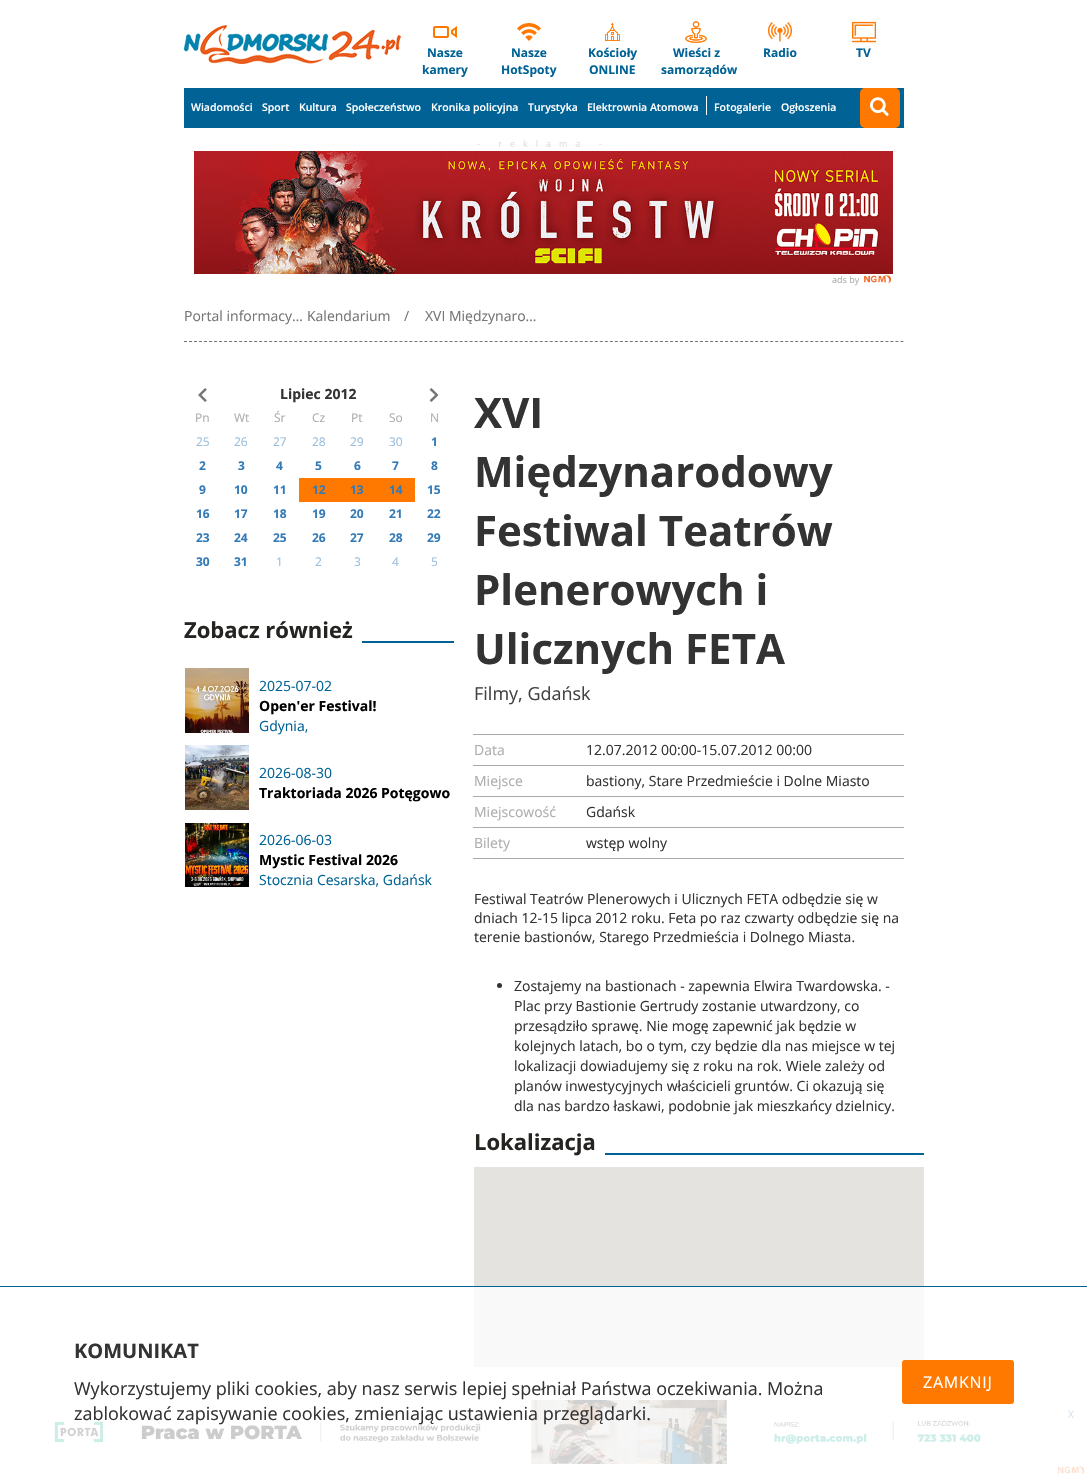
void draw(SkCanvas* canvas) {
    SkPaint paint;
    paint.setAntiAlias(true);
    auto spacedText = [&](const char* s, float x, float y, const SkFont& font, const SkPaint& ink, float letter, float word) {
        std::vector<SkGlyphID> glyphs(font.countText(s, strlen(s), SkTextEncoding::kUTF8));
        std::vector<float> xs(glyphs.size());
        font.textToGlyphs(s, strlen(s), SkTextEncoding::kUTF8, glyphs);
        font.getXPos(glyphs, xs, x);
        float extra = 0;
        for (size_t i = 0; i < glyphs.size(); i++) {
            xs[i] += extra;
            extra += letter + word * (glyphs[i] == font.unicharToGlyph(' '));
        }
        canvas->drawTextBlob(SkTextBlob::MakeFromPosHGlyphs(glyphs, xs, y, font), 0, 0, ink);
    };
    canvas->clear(0xFFFFFFFF);
    canvas->drawImageRect(SkImages::DeferredFromEncodedData(SkData::MakeFromFileName("img1.png")), SkRect::MakeXYWH(184, 25, 217, 39), SkSamplingOptions());
    canvas->drawImageRect(SkImages::DeferredFromEncodedData(SkData::MakeFromFileName("img2.png")), SkRect::MakeXYWH(433, 26, 24, 12), SkSamplingOptions());
    SkFont font1(fontMgr->matchFamilyStyle("Open Sans", SkFontStyle::Bold()), 12);
    font1.setSubpixel(true);
    paint.setColor(0xFF006295);
    canvas->drawString("Nasze", 427, 57, font1, paint);
    canvas->drawString("kamery", 422, 74, font1, paint);
    canvas->drawImageRect(SkImages::DeferredFromEncodedData(SkData::MakeFromFileName("img3.png")), SkRect::MakeXYWH(517, 23, 24, 18), SkSamplingOptions());
    canvas->drawString("Nasze", 511, 57, font1, paint);
    canvas->drawString("HotSpoty", 501, 74, font1, paint);
    canvas->drawImageRect(SkImages::DeferredFromEncodedData(SkData::MakeFromFileName("img4.png")), SkRect::MakeXYWH(605, 23, 15, 18), SkSamplingOptions());
    canvas->drawString("Kościoły", 588, 57, font1, paint);
    canvas->drawString("ONLINE", 589, 74, font1, paint);
    canvas->drawImageRect(SkImages::DeferredFromEncodedData(SkData::MakeFromFileName("img5.png")), SkRect::MakeXYWH(685, 21, 22, 22), SkSamplingOptions());
    canvas->drawString("Wieści z", 673, 57, font1, paint);
    canvas->drawString("samorządów", 661, 74, font1, paint);
    canvas->drawImageRect(SkImages::DeferredFromEncodedData(SkData::MakeFromFileName("img6.png")), SkRect::MakeXYWH(768, 22, 24, 20), SkSamplingOptions());
    canvas->drawString("Radio", 763, 57, font1, paint);
    canvas->drawImageRect(SkImages::DeferredFromEncodedData(SkData::MakeFromFileName("img7.png")), SkRect::MakeXYWH(852, 21, 24, 22), SkSamplingOptions());
    canvas->drawString("TV", 856, 57, font1, paint);
    canvas->drawRect(SkRect::MakeXYWH(184, 88, 720, 40), paint);
    paint.setColor(0xFFFFFFFF);
    canvas->drawRect(SkRect::MakeXYWH(706, 96, 1, 19), paint);
    SkFont font2(fontMgr->matchFamilyStyle("Open Sans", SkFontStyle(600, SkFontStyle::kNormal_Width, SkFontStyle::kUpright_Slant)), 10.5f);
    font2.setSubpixel(true);
    canvas->drawString("Wiadomości", 191, 111, font2, paint);
    canvas->drawString("Sport", 262, 111, font2, paint);
    canvas->drawString("Kultura", 299, 111, font2, paint);
    canvas->drawString("Społeczeństwo", 346, 111, font2, paint);
    canvas->drawString("Kronika policyjna", 431, 111, font2, paint);
    canvas->drawString("Turystyka", 528, 111, font2, paint);
    canvas->drawString("Elektrownia Atomowa", 587, 111, font2, paint);
    canvas->drawString("Fotogalerie", 714, 111, font2, paint);
    canvas->drawString("Ogłoszenia", 781, 111, font2, paint);
    paint.setColor(0xFFFF7800);
    canvas->drawRoundRect(SkRect::MakeXYWH(860, 88, 40, 40), 5, 5, paint);
    canvas->drawImageRect(SkImages::DeferredFromEncodedData(SkData::MakeFromFileName("img8.png")), SkRect::MakeXYWH(870, 97, 19, 19), SkSamplingOptions());
    SkFont font3(fontMgr->matchFamilyStyle("Open Sans", SkFontStyle::Normal()), 9);
    font3.setSubpixel(true);
    paint.setColor(0xFFDEDEDE);
    spacedText("- reklama -", 477, 147, font3, paint, 8, 0);
    canvas->drawImageRect(SkImages::DeferredFromEncodedData(SkData::MakeFromFileName("img9.png")), SkRect::MakeXYWH(194, 151, 699, 123), SkSamplingOptions());
    paint.setColor(0xFFADADAD);
    canvas->drawString("ads by", 832, 283, font3, paint);
    canvas->drawImageRect(SkImages::DeferredFromEncodedData(SkData::MakeFromFileName("img10.png")), SkRect::MakeXYWH(864, 274, 27, 10), SkSamplingOptions());
    paint.setStyle(SkPaint::kStroke_Style);
    paint.setStrokeWidth(1);
    paint.setColor(0xFF757575);
    paint.setPathEffect(SkDashPathEffect::Make({{3, 2.01f}}, 0));
    canvas->drawPath(SkPathBuilder().moveTo(184, 341.5f).lineTo(904, 341.5f).detach(), paint);
    paint.setPathEffect(nullptr);
    SkFont font4(fontMgr->matchFamilyStyle("Open Sans", SkFontStyle::Normal()), 14);
    font4.setSubpixel(true);
    paint.setStyle(SkPaint::kFill_Style);
    canvas->drawString("Portal informacy…", 184, 321, font4, paint);
    canvas->drawString("Kalendarium", 307, 321, font4, paint);
    canvas->drawString("/", 404, 321, font4, paint);
    canvas->drawString("XVI Międzynaro…", 425, 321, font4, paint);
    canvas->drawImageRect(SkImages::DeferredFromEncodedData(SkData::MakeFromFileName("img11.png")), SkRect::MakeXYWH(198, 388, 9, 14), SkSamplingOptions());
    SkFont font5(fontMgr->matchFamilyStyle("Open Sans", SkFontStyle::Bold()), 14);
    font5.setSubpixel(true);
    paint.setColor(0xFF333333);
    canvas->drawString("Lipiec 2012", 280, 399, font5, paint);
    canvas->drawImageRect(SkImages::DeferredFromEncodedData(SkData::MakeFromFileName("img12.png")), SkRect::MakeXYWH(429, 388, 10, 14), SkSamplingOptions());
    SkFont font6(fontMgr->matchFamilyStyle("Open Sans", SkFontStyle::Normal()), 12);
    font6.setSubpixel(true);
    paint.setColor(0xFFADADAD);
    canvas->drawString("Pn", 195, 422, font6, paint);
    canvas->drawString("Wt", 234, 422, font6, paint);
    canvas->drawString("Śr", 274, 422, font6, paint);
    canvas->drawString("Cz", 312, 422, font6, paint);
    canvas->drawString("Pt", 351, 422, font6, paint);
    canvas->drawString("So", 389, 422, font6, paint);
    canvas->drawString("N", 430, 422, font6, paint);
    paint.setColor(0xFF99BDDB);
    canvas->drawString("25", 196, 446, font6, paint);
    canvas->drawString("26", 234, 446, font6, paint);
    canvas->drawString("27", 273, 446, font6, paint);
    canvas->drawString("28", 312, 446, font6, paint);
    canvas->drawString("29", 350, 446, font6, paint);
    canvas->drawString("30", 389, 446, font6, paint);
    paint.setColor(0xFF337AB7);
    canvas->drawString("1", 431, 446, font1, paint);
    canvas->drawString("2", 199, 470, font1, paint);
    canvas->drawString("3", 238, 470, font1, paint);
    canvas->drawString("4", 276, 470, font1, paint);
    canvas->drawString("5", 315, 470, font1, paint);
    canvas->drawString("6", 354, 470, font1, paint);
    canvas->drawString("7", 392, 470, font1, paint);
    canvas->drawString("8", 431, 470, font1, paint);
    canvas->drawString("9", 199, 494, font1, paint);
    canvas->drawString("10", 234, 494, font1, paint);
    canvas->drawString("11", 273, 494, font1, paint);
    paint.setColor(0xFFFF7800);
    canvas->drawRect(SkRect::MakeXYWH(299, 478, 116, 24), paint);
    paint.setColor(0xFF337AB7);
    canvas->drawString("12", 312, 494, font1, paint);
    canvas->drawString("13", 350, 494, font1, paint);
    canvas->drawString("14", 389, 494, font1, paint);
    canvas->drawString("15", 427, 494, font1, paint);
    canvas->drawString("16", 196, 518, font1, paint);
    canvas->drawString("17", 234, 518, font1, paint);
    canvas->drawString("18", 273, 518, font1, paint);
    canvas->drawString("19", 312, 518, font1, paint);
    canvas->drawString("20", 350, 518, font1, paint);
    canvas->drawString("21", 389, 518, font1, paint);
    canvas->drawString("22", 427, 518, font1, paint);
    canvas->drawString("23", 196, 542, font1, paint);
    canvas->drawString("24", 234, 542, font1, paint);
    canvas->drawString("25", 273, 542, font1, paint);
    canvas->drawString("26", 312, 542, font1, paint);
    canvas->drawString("27", 350, 542, font1, paint);
    canvas->drawString("28", 389, 542, font1, paint);
    canvas->drawString("29", 427, 542, font1, paint);
    canvas->drawString("30", 196, 566, font1, paint);
    canvas->drawString("31", 234, 566, font1, paint);
    paint.setColor(0xFF99BDDB);
    canvas->drawString("1", 276, 566, font6, paint);
    canvas->drawString("2", 315, 566, font6, paint);
    canvas->drawString("3", 354, 566, font6, paint);
    canvas->drawString("4", 392, 566, font6, paint);
    canvas->drawString("5", 431, 566, font6, paint);
    SkFont font7(fontMgr->matchFamilyStyle("Open Sans", SkFontStyle::Bold()), 22);
    font7.setSubpixel(true);
    paint.setColor(0xFF252421);
    canvas->drawString("Zobacz również", 184, 638, font7, paint);
    paint.setColor(0xFF006295);
    canvas->drawRect(SkRect::MakeXYWH(362, 641, 92, 2), paint);
    canvas->drawImageRect(SkImages::DeferredFromEncodedData(SkData::MakeFromFileName("img13.png")), SkRect::MakeXYWH(185, 668, 64, 65), SkSamplingOptions());
    canvas->drawString("2025-07-02", 259, 691, font4, paint);
    paint.setColor(0xFF000000);
    canvas->drawString("Open'er Festival!", 259, 711, font5, paint);
    paint.setColor(0xFF006295);
    canvas->drawString("Gdynia,", 259, 731, font4, paint);
    canvas->drawImageRect(SkImages::DeferredFromEncodedData(SkData::MakeFromFileName("img14.png")), SkRect::MakeXYWH(185, 745, 64, 65), SkSamplingOptions());
    canvas->drawString("2026-08-30", 259, 778, font4, paint);
    paint.setColor(0xFF000000);
    canvas->drawString("Traktoriada 2026 Potęgowo", 259, 798, font5, paint);
    canvas->drawImageRect(SkImages::DeferredFromEncodedData(SkData::MakeFromFileName("img15.png")), SkRect::MakeXYWH(185, 823, 64, 64), SkSamplingOptions());
    paint.setColor(0xFF006295);
    canvas->drawString("2026-06-03", 259, 845, font4, paint);
    paint.setColor(0xFF000000);
    canvas->drawString("Mystic Festival 2026", 259, 865, font5, paint);
    paint.setColor(0xFF006295);
    canvas->drawString("Stocznia Cesarska, Gdańsk", 259, 885, font4, paint);
    SkFont font8(fontMgr->matchFamilyStyle("Open Sans", SkFontStyle::Bold()), 42);
    font8.setSubpixel(true);
    paint.setColor(0xFF333333);
    canvas->drawString("XVI", 474, 428, font8, paint);
    canvas->drawString("Międzynarodowy", 474, 487, font8, paint);
    canvas->drawString("Festiwal Teatrów", 474, 546, font8, paint);
    canvas->drawString("Plenerowych i", 474, 605, font8, paint);
    canvas->drawString("Ulicznych FETA", 474, 664, font8, paint);
    SkFont font9(fontMgr->matchFamilyStyle("Open Sans", SkFontStyle::Normal()), 18);
    font9.setSubpixel(true);
    paint.setColor(0xFF424242);
    canvas->drawString("Filmy, Gdańsk", 474, 700, font9, paint);
    paint.setColor(0xFFAAAAAA);
    canvas->drawRect(SkRect::MakeXYWH(473, 734, 431, 1), paint);
    paint.setColor(0xFFADADAD);
    canvas->drawString("Data", 474, 755, font4, paint);
    paint.setColor(0xFF333333);
    canvas->drawString("12.07.2012 00:00-15.07.2012 00:00", 586, 755, font4, paint);
    paint.setColor(0xFFAAAAAA);
    canvas->drawRect(SkRect::MakeXYWH(473, 765, 431, 1), paint);
    paint.setColor(0xFFADADAD);
    canvas->drawString("Miejsce", 474, 786, font4, paint);
    paint.setColor(0xFF333333);
    canvas->drawString("bastiony, Stare Przedmieście i Dolne Miasto", 586, 786, font4, paint);
    paint.setColor(0xFFAAAAAA);
    canvas->drawRect(SkRect::MakeXYWH(473, 796, 431, 1), paint);
    paint.setColor(0xFFADADAD);
    canvas->drawString("Miejscowość", 474, 817, font4, paint);
    paint.setColor(0xFF333333);
    canvas->drawString("Gdańsk", 586, 817, font4, paint);
    paint.setColor(0xFFAAAAAA);
    canvas->drawRect(SkRect::MakeXYWH(473, 827, 431, 1), paint);
    canvas->drawRect(SkRect::MakeXYWH(473, 858, 431, 1), paint);
    paint.setColor(0xFFADADAD);
    canvas->drawString("Bilety", 474, 848, font4, paint);
    paint.setColor(0xFF333333);
    canvas->drawString("wstęp wolny", 586, 848, font4, paint);
    canvas->drawString("Festiwal Teatrów Plenerowych i Ulicznych FETA odbędzie się w", 474, 904, font4, paint);
    canvas->drawString("dniach 12-15 lipca 2012 roku. Feta po raz czwarty odbędzie się na", 474, 923, font4, paint);
    canvas->drawString("terenie bastionów, Starego Przedmieścia i Dolnego Miasta.", 474, 942, font4, paint);
    canvas->drawCircle(499.5f, 985.5f, 2.5f, paint);
    canvas->drawString("Zostajemy na bastionach - zapewnia Elwira Twardowska. -", 514, 991, font4, paint);
    canvas->drawString("Plac przy Bastionie Gertrudy zostanie utwardzony, co", 514, 1011, font4, paint);
    canvas->drawString("przesądziło sprawę. Nie mogę zapewnić jak będzie w", 514, 1031, font4, paint);
    canvas->drawString("kolejnych latach, bo o tym, czy będzie dla nas miejsce w tej", 514, 1051, font4, paint);
    canvas->drawString("lokalizacji dowiadujemy się z roku na rok. Wiele zależy od", 514, 1071, font4, paint);
    canvas->drawString("planów inwestycyjnych właścicieli gruntów. Ci okazują się", 514, 1091, font4, paint);
    canvas->drawString("dla nas bardzo łaskawi, podobnie jak mieszkańcy dzielnicy.", 514, 1111, font4, paint);
    paint.setColor(0xFF252421);
    canvas->drawString("Lokalizacja", 474, 1150, font7, paint);
    paint.setColor(0xFF006295);
    canvas->drawRect(SkRect::MakeXYWH(605, 1153, 319, 2), paint);
    paint.setColor(0xFFE5E3DF);
    canvas->drawRect(SkRect::MakeXYWH(474, 1167, 450, 119), paint);
    paint.setColor(0xFFFAF9F9);
    canvas->drawRect(SkRect::MakeXYWH(474, 1287, 450, 80), paint);
    paint.setColor(0xFF006295);
    canvas->drawRect(SkRect::MakeXYWH(0, 1286, 1087, 1), paint);
    SkFont font10(fontMgr->matchFamilyStyle("Open Sans", SkFontStyle::Bold()), 20);
    font10.setSubpixel(true);
    paint.setColor(0xFF333333);
    canvas->drawString("KOMUNIKAT", 74, 1358, font10, paint);
    canvas->drawString("Wykorzystujemy pliki cookies, aby nasz serwis lepiej spełniał Państwa oczekiwania. Można", 74, 1395, font9, paint);
    canvas->drawImageRect(SkImages::DeferredFromEncodedData(SkData::MakeFromFileName("img16.png")), SkRect::MakeXYWH(54, 1400, 927, 64), SkSamplingOptions());
    canvas->drawString("zablokować zapisywanie cookies, zmieniając ustawienia przeglądarki.", 74, 1420, font9, paint);
    paint.setColor(0xFFFF7800);
    canvas->drawRoundRect(SkRect::MakeXYWH(902, 1360, 112, 44), 3, 3, paint);
    SkFont font11(fontMgr->matchFamilyStyle("Open Sans", SkFontStyle::Normal()), 16);
    font11.setSubpixel(true);
    paint.setColor(0xFFFFFFFF);
    spacedText("ZAMKNIJ", 923, 1388, font11, paint, 0.75f, 0);
    SkFont font12(fontMgr->matchFamilyStyle("Open Sans", SkFontStyle::Normal()), 10);
    font12.setSubpixel(true);
    paint.setColor(0xFFD6E4F1);
    canvas->drawString("X", 1068, 1418, font12, paint);
    canvas->drawImageRect(SkImages::DeferredFromEncodedData(SkData::MakeFromFileName("img17.png")), SkRect::MakeXYWH(1058, 1465, 27, 10), SkSamplingOptions());
}
